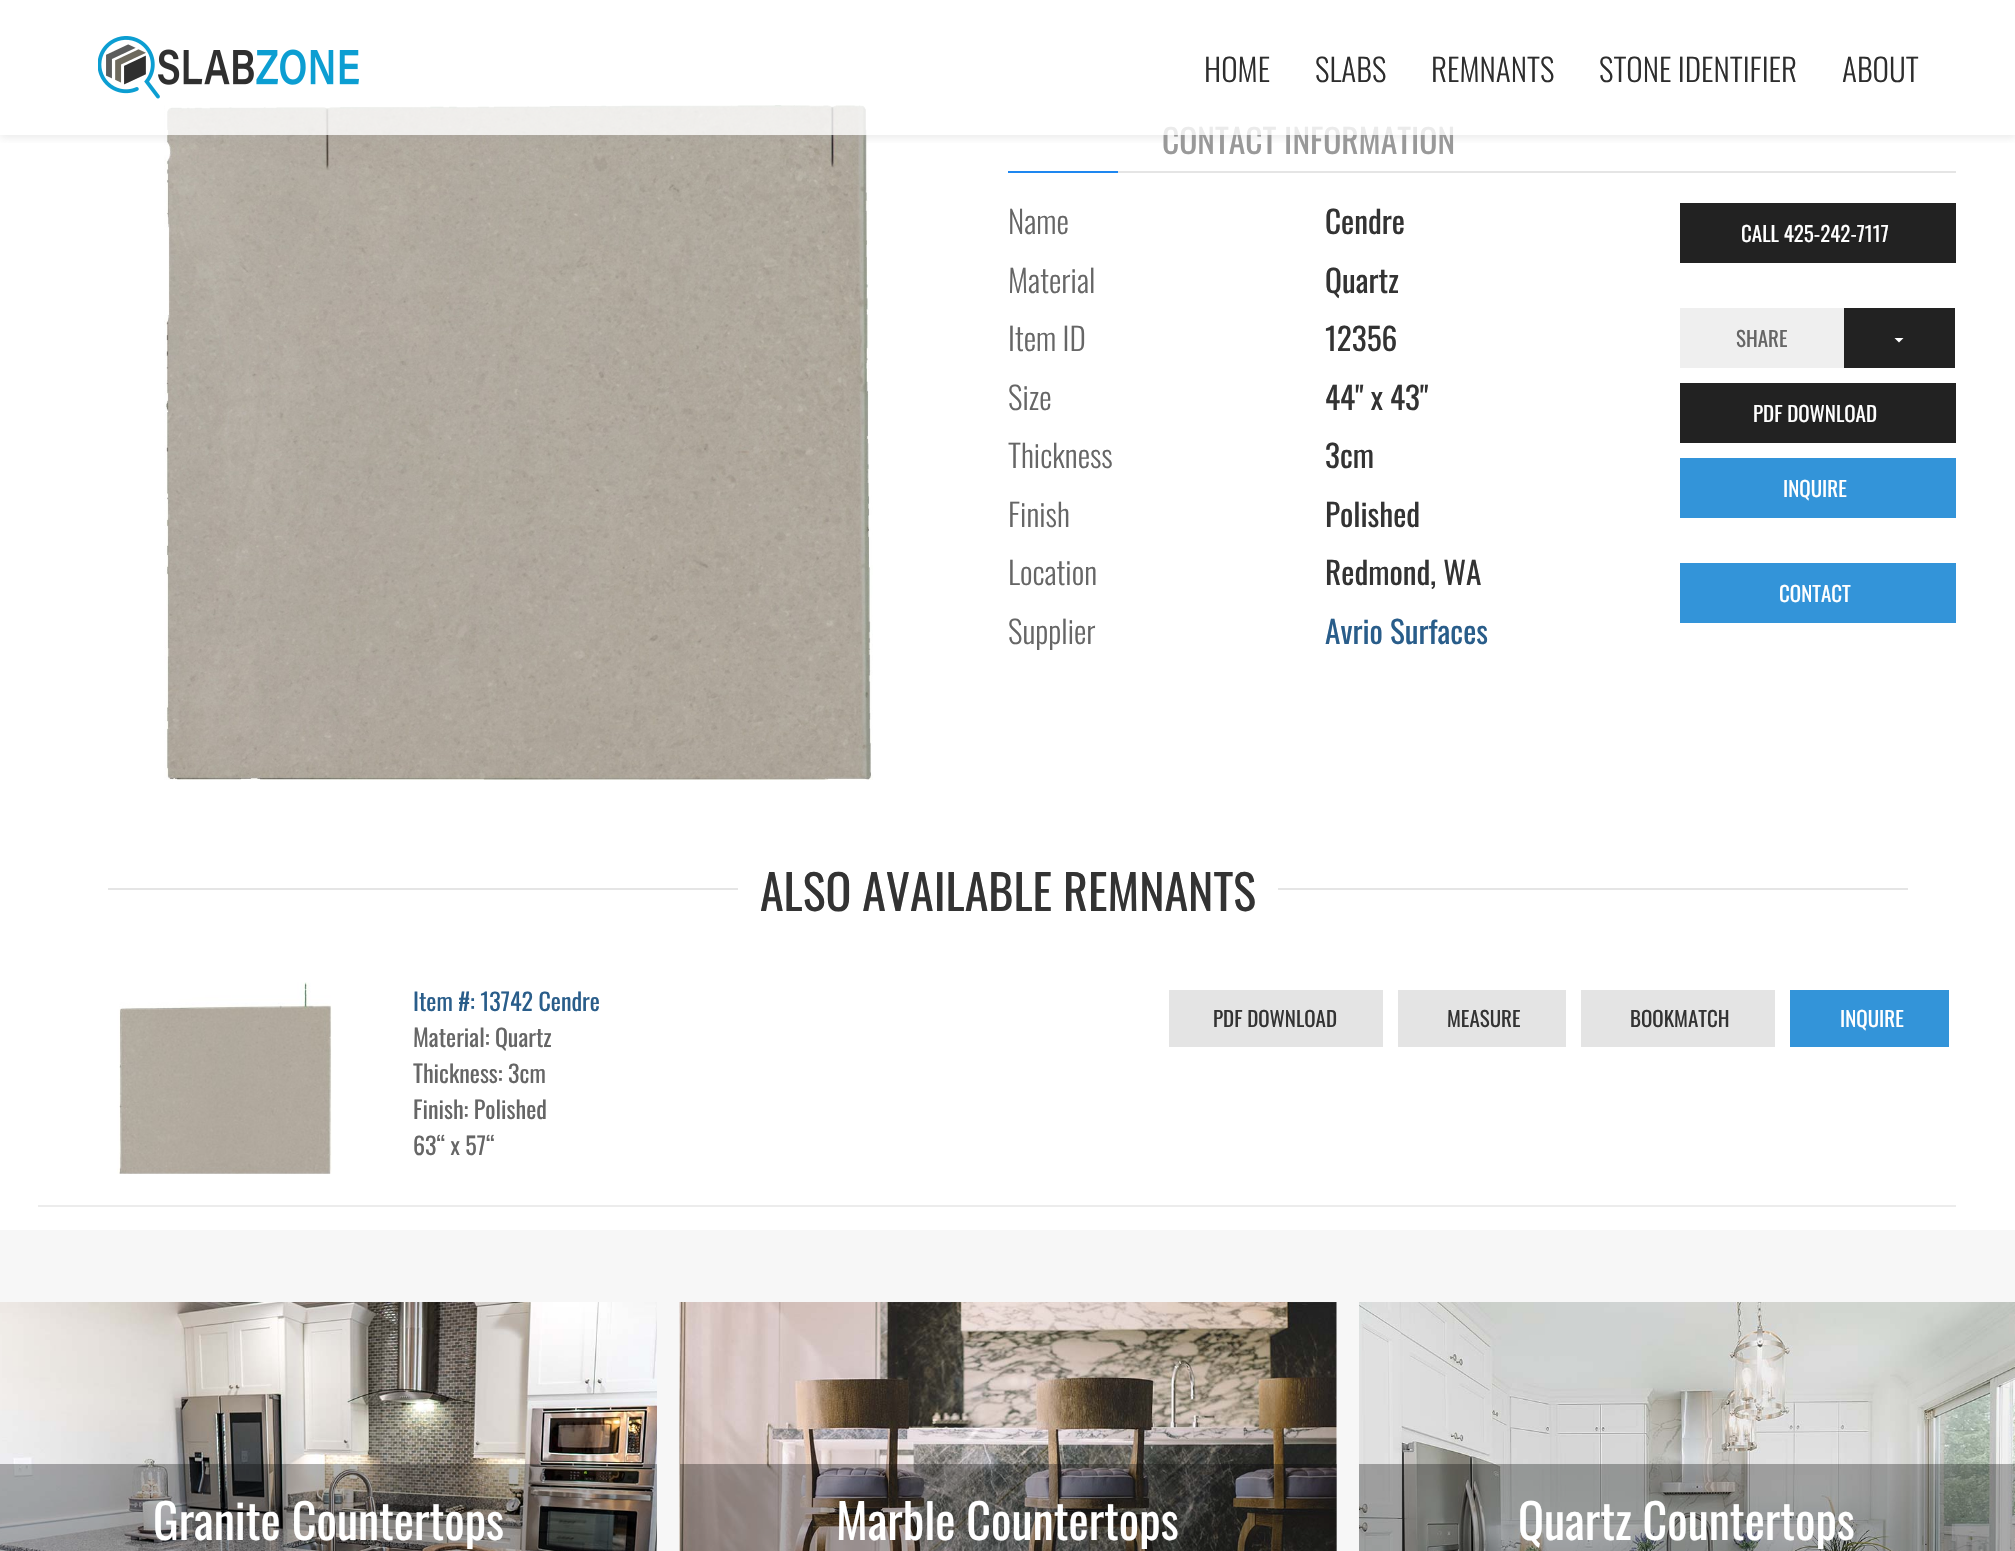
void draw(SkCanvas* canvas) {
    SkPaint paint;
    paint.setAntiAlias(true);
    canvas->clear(0xFFFFFFFF);
    canvas->drawImageRect(SkImages::DeferredFromEncodedData(SkData::MakeFromFileName("img2.png")), SkRect::MakeXYWH(164, 105, 709, 675), SkSamplingOptions());
    canvas->save();
    canvas->clipRect(SkRect::MakeXYWH(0, 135, 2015, 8));
    paint.setColor(0x33999999);
    paint.setMaskFilter(SkMaskFilter::MakeBlur(kNormal_SkBlurStyle, 4));
    canvas->drawRect(SkRect::MakeXYWH(0, 3, 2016, 135), paint);
    paint.setMaskFilter(nullptr);
    canvas->restore();
    SkFont font1(fontMgr->matchFamilyStyle("Oswald", SkFontStyle::Normal()), 33.5f);
    font1.setSubpixel(true);
    paint.setColor(0xFF999999);
    canvas->drawString("CONTACT INFORMATION", 1162, 154, font1, paint);
    paint.setColor(0xCCFFFFFF);
    canvas->drawRect(SkRect::MakeXYWH(165, 105, 1289, 30), paint);
    canvas->drawImageRect(SkImages::DeferredFromEncodedData(SkData::MakeFromFileName("img1.png")), SkRect::MakeXYWH(98, 36, 261, 63), SkSamplingOptions());
    SkFont font2(fontMgr->matchFamilyStyle("Oswald", SkFontStyle(300, SkFontStyle::kNormal_Width, SkFontStyle::kUpright_Slant)), 31.25f);
    font2.setSubpixel(true);
    paint.setColor(0xFF2D2D2D);
    canvas->drawString("HOME", 1204, 82, font2, paint);
    canvas->drawString("SLABS", 1315, 82, font2, paint);
    canvas->drawString("REMNANTS", 1431, 82, font2, paint);
    canvas->drawString("STONE IDENTIFIER", 1599, 82, font2, paint);
    canvas->drawString("ABOUT", 1842, 82, font2, paint);
    paint.setColor(0xFF1E87F0);
    canvas->drawRect(SkRect::MakeXYWH(1008, 171, 110, 2), paint);
    paint.setColor(0xFFE5E5E5);
    canvas->drawRect(SkRect::MakeXYWH(1118, 171, 838, 2), paint);
    paint.setColor(0xFF666666);
    canvas->drawString("Name", 1008, 234, font2, paint);
    SkFont font3(fontMgr->matchFamilyStyle("Oswald", SkFontStyle::Normal()), 31.25f);
    font3.setSubpixel(true);
    paint.setColor(0xFF333333);
    canvas->drawString("Cendre", 1325, 234, font3, paint);
    paint.setColor(0xFF666666);
    canvas->drawString("Material", 1008, 293, font2, paint);
    paint.setColor(0xFF333333);
    canvas->drawString("Quartz", 1325, 293, font3, paint);
    paint.setColor(0xFF666666);
    canvas->drawString("Item ID", 1008, 351, font2, paint);
    paint.setColor(0xFF333333);
    canvas->drawString("12356", 1325, 351, font3, paint);
    paint.setColor(0xFF666666);
    canvas->drawString("Size", 1008, 410, font2, paint);
    paint.setColor(0xFF333333);
    canvas->drawString("44\" x 43\"", 1325, 410, font3, paint);
    paint.setColor(0xFF666666);
    canvas->drawString("Thickness", 1008, 468, font2, paint);
    paint.setColor(0xFF333333);
    canvas->drawString("3cm", 1325, 468, font3, paint);
    paint.setColor(0xFF666666);
    canvas->drawString("Finish", 1008, 527, font2, paint);
    paint.setColor(0xFF333333);
    canvas->drawString("Polished", 1325, 527, font3, paint);
    paint.setColor(0xFF666666);
    canvas->drawString("Location", 1008, 585, font2, paint);
    paint.setColor(0xFF333333);
    canvas->drawString("Redmond, WA", 1325, 585, font3, paint);
    paint.setColor(0xFF666666);
    canvas->drawString("Supplier", 1008, 644, font2, paint);
    paint.setColor(0xFF295D8A);
    canvas->drawString("Avrio Surfaces", 1325, 644, font3, paint);
    paint.setColor(0xFF222222);
    canvas->drawRect(SkRect::MakeXYWH(1680, 203, 276, 60), paint);
    SkFont font4(fontMgr->matchFamilyStyle("Oswald", SkFontStyle::Normal()), 21);
    font4.setSubpixel(true);
    paint.setColor(0xFFFFFFFF);
    canvas->drawString("CALL 425-242-7117", 1741, 242, font4, paint);
    paint.setColor(0xFFEFEFEF);
    canvas->drawRect(SkRect::MakeXYWH(1680, 308, 164, 60), paint);
    paint.setColor(0xFF666666);
    canvas->drawString("SHARE", 1736, 347, font4, paint);
    paint.setColor(0xFF222222);
    canvas->drawRect(SkRect::MakeXYWH(1844, 308, 111, 60), paint);
    paint.setColor(0xFFFFFFFF);
    canvas->drawPath(SkPathBuilder().moveTo(1894.5f, 338).lineTo(1903.5f, 338).lineTo(1899, 342.5f).close().detach(), paint);
    paint.setColor(0xFF222222);
    canvas->drawRect(SkRect::MakeXYWH(1680, 383, 276, 60), paint);
    paint.setColor(0xFFFFFFFF);
    canvas->drawString("PDF DOWNLOAD", 1753, 422, font4, paint);
    paint.setColor(0xFF3394D9);
    canvas->drawRect(SkRect::MakeXYWH(1680, 458, 276, 60), paint);
    paint.setColor(0xFFFFFFFF);
    canvas->drawString("INQUIRE", 1783, 497, font4, paint);
    paint.setColor(0xFF3394D9);
    canvas->drawRect(SkRect::MakeXYWH(1680, 563, 276, 60), paint);
    paint.setColor(0xFFFFFFFF);
    canvas->drawString("CONTACT", 1779, 602, font4, paint);
    paint.setColor(0xFFE5E5E5);
    canvas->drawRect(SkRect::MakeXYWH(108, 888, 630, 2), paint);
    SkFont font5(fontMgr->matchFamilyStyle("Oswald", SkFontStyle::Normal()), 48);
    font5.setSubpixel(true);
    paint.setColor(0xFF333333);
    canvas->drawString("ALSO AVAILABLE REMNANTS", 760, 911, font5, paint);
    paint.setColor(0xFFE5E5E5);
    canvas->drawRect(SkRect::MakeXYWH(1278, 888, 630, 2), paint);
    paint.setColor(0xFFECECEC);
    canvas->drawRect(SkRect::MakeXYWH(38, 1205, 1918, 2), paint);
    canvas->drawImageRect(SkImages::DeferredFromEncodedData(SkData::MakeFromFileName("img3.png")), SkRect::MakeXYWH(117, 982, 215, 192), SkSamplingOptions());
    SkFont font6(fontMgr->matchFamilyStyle("Oswald", SkFontStyle::Normal()), 24);
    font6.setSubpixel(true);
    paint.setColor(0xFF295D8A);
    canvas->drawString("Item #: 13742 Cendre", 413, 1011, font6, paint);
    paint.setColor(0xFF666666);
    canvas->drawString("Material: Quartz", 413, 1047, font6, paint);
    canvas->drawString("Thickness: 3cm", 413, 1083, font6, paint);
    canvas->drawString("Finish: Polished", 413, 1119, font6, paint);
    canvas->drawString("63“ x 57“", 413, 1155, font6, paint);
    paint.setColor(0xFFE4E4E4);
    canvas->drawRect(SkRect::MakeXYWH(1169, 990, 214, 57), paint);
    paint.setColor(0xFF333333);
    canvas->drawString("PDF DOWNLOAD", 1213, 1027, font4, paint);
    paint.setColor(0xFFE4E4E4);
    canvas->drawRect(SkRect::MakeXYWH(1398, 990, 168, 57), paint);
    paint.setColor(0xFF333333);
    canvas->drawString("MEASURE", 1447, 1027, font4, paint);
    paint.setColor(0xFFE4E4E4);
    canvas->drawRect(SkRect::MakeXYWH(1581, 990, 194, 57), paint);
    paint.setColor(0xFF333333);
    canvas->drawString("BOOKMATCH", 1630, 1027, font4, paint);
    paint.setColor(0xFF3394D9);
    canvas->drawRect(SkRect::MakeXYWH(1790, 990, 159, 57), paint);
    paint.setColor(0xFFFFFFFF);
    canvas->drawString("INQUIRE", 1840, 1027, font4, paint);
    paint.setColor(0xFFF7F7F7);
    canvas->drawRect(SkRect::MakeXYWH(0, 1230, 2015, 321), paint);
    canvas->drawImageRect(SkImages::DeferredFromEncodedData(SkData::MakeFromFileName("img4.png")), SkRect::MakeXYWH(0, 1302, 657, 249), SkSamplingOptions());
    paint.setColor(0x4D000000);
    canvas->drawRect(SkRect::MakeXYWH(0, 1464, 657, 87), paint);
    paint.setColor(0xFFFFFFFF);
    canvas->drawString("Granite Countertops", 153, 1540, font5, paint);
    canvas->drawImageRect(SkImages::DeferredFromEncodedData(SkData::MakeFromFileName("img5.png")), SkRect::MakeXYWH(679, 1302, 658, 249), SkSamplingOptions());
    paint.setColor(0x4D000000);
    canvas->drawRect(SkRect::MakeXYWH(680, 1464, 657, 87), paint);
    paint.setColor(0xFFFFFFFF);
    canvas->drawString("Marble Countertops", 836, 1540, font5, paint);
    canvas->drawImageRect(SkImages::DeferredFromEncodedData(SkData::MakeFromFileName("img6.png")), SkRect::MakeXYWH(1359, 1302, 656, 249), SkSamplingOptions());
    paint.setColor(0x4D000000);
    canvas->drawRect(SkRect::MakeXYWH(1359, 1464, 656, 87), paint);
    paint.setColor(0xFFFFFFFF);
    canvas->drawString("Quartz Countertops", 1518, 1540, font5, paint);
}
